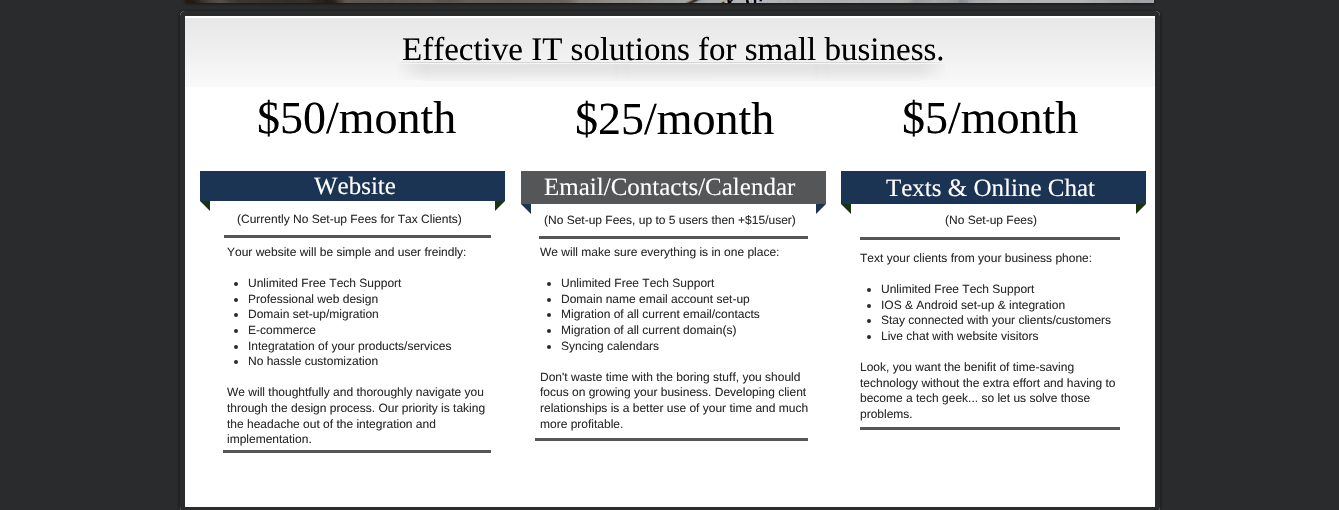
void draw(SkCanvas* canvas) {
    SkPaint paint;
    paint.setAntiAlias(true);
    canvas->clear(0xFF2A2B2C);
    paint.setColor(0x80000000);
    paint.setMaskFilter(SkMaskFilter::MakeBlur(kNormal_SkBlurStyle, 1.5f));
    canvas->drawRect(SkRect::MakeXYWH(185, -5, 969, 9), paint);
    paint.setMaskFilter(nullptr);
    canvas->drawImageRect(SkImages::DeferredFromEncodedData(SkData::MakeFromFileName("img1.png")), SkRect::MakeXYWH(185, 0, 969, 3), SkSamplingOptions());
    paint.setColor(0x99000000);
    paint.setMaskFilter(SkMaskFilter::MakeBlur(kNormal_SkBlurStyle, 2));
    canvas->drawRoundRect(SkRect::MakeXYWH(180, 12, 980, 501), 5, 5, paint);
    paint.setMaskFilter(nullptr);
    paint.setColor(0xFFFFFFFF);
    canvas->drawRoundRect(SkRect::MakeXYWH(180, 11, 980, 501), 5, 5, paint);
    canvas->drawImageRect(SkImages::DeferredFromEncodedData(SkData::MakeFromFileName("img2.png")), SkRect::MakeXYWH(185, 18, 970, 69), SkSamplingOptions());
    paint.setStyle(SkPaint::kStroke_Style);
    paint.setStrokeWidth(5);
    paint.setColor(0xFF2A2B2C);
    canvas->drawRoundRect(SkRect::MakeXYWH(182.5f, 13.5f, 975, 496), 2.5f, 2.5f, paint);
    SkFont font1(fontMgr->matchFamilyStyle("Liberation Serif", SkFontStyle::Normal()), 33);
    font1.setSubpixel(true);
    paint.setStyle(SkPaint::kFill_Style);
    paint.setColor(0xFF000000);
    canvas->drawString("Effective IT solutions for small business.", 402, 60, font1, paint);
    canvas->drawImageRect(SkImages::DeferredFromEncodedData(SkData::MakeFromFileName("img3.png")), SkRect::MakeXYWH(398, 62, 24, 18), SkSamplingOptions());
    canvas->drawImageRect(SkImages::DeferredFromEncodedData(SkData::MakeFromFileName("img4.png")), SkRect::MakeXYWH(422, 62, 499, 19), SkSamplingOptions());
    canvas->drawImageRect(SkImages::DeferredFromEncodedData(SkData::MakeFromFileName("img5.png")), SkRect::MakeXYWH(921, 62, 24, 18), SkSamplingOptions());
    SkFont font2(fontMgr->matchFamilyStyle("Liberation Serif", SkFontStyle::Normal()), 46);
    font2.setSubpixel(true);
    canvas->drawString("$50/month", 257, 133, font2, paint);
    canvas->drawString("$25/month", 575, 134, font2, paint);
    canvas->drawString("$5/month", 902, 133, font2, paint);
    paint.setColor(0xFF1B3454);
    canvas->drawRect(SkRect::MakeXYWH(200, 171, 305, 30), paint);
    paint.setColor(0xFF1A340F);
    canvas->drawPath(SkPathBuilder().moveTo(200, 201).lineTo(210, 201).lineTo(210, 211).close().detach(), paint);
    SkFont font3(fontMgr->matchFamilyStyle("Liberation Serif", SkFontStyle::Normal()), 25);
    font3.setSubpixel(true);
    paint.setColor(0xFFFFFFFF);
    canvas->drawString("Website", 314, 194, font3, paint);
    SkFont font4(fontMgr->matchFamilyStyle("Liberation Sans", SkFontStyle::Normal()), 12);
    font4.setSubpixel(true);
    paint.setColor(0xFF2A2B2C);
    canvas->drawString("(Currently No Set-up Fees for Tax Clients)", 237, 223, font4, paint);
    paint.setColor(0xFF1A340F);
    canvas->drawPath(SkPathBuilder().moveTo(495, 201).lineTo(505, 201).lineTo(495, 211).close().detach(), paint);
    paint.setColor(0xFF545658);
    canvas->drawRect(SkRect::MakeXYWH(521, 171, 305, 33), paint);
    paint.setColor(0xFFFFFFFF);
    canvas->drawString("Email/Contacts/Calendar", 544, 195, font3, paint);
    paint.setColor(0xFF1B3454);
    canvas->drawPath(SkPathBuilder().moveTo(521, 204).lineTo(531, 204).lineTo(531, 214).close().detach(), paint);
    canvas->drawPath(SkPathBuilder().moveTo(816, 204).lineTo(826, 204).lineTo(816, 214).close().detach(), paint);
    canvas->drawRect(SkRect::MakeXYWH(841, 171, 305, 33), paint);
    paint.setColor(0xFFFFFFFF);
    canvas->drawString("Texts & Online Chat", 886, 196, font3, paint);
    paint.setColor(0xFF1A340F);
    canvas->drawPath(SkPathBuilder().moveTo(841, 204).lineTo(851, 204).lineTo(851, 214).close().detach(), paint);
    canvas->drawPath(SkPathBuilder().moveTo(1136, 204).lineTo(1146, 204).lineTo(1136, 214).close().detach(), paint);
    paint.setColor(0xFF2A2B2C);
    canvas->drawString("(No Set-up Fees, up to 5 users then +$15/user)", 544, 224, font4, paint);
    canvas->drawString("(No Set-up Fees)", 945, 224, font4, paint);
    paint.setColor(0xFF545658);
    canvas->drawRect(SkRect::MakeXYWH(224, 235, 267, 3), paint);
    canvas->drawRect(SkRect::MakeXYWH(539, 236, 269, 3), paint);
    canvas->drawRect(SkRect::MakeXYWH(860, 237, 260, 3), paint);
    paint.setColor(0xFF2A2B2C);
    canvas->drawString("Your website will be simple and user freindly:", 227, 256, font4, paint);
    canvas->drawCircle(236, 284, 2, paint);
    canvas->drawString("Unlimited Free Tech Support", 248, 287, font4, paint);
    canvas->drawCircle(236, 300, 2, paint);
    canvas->drawString("Professional web design", 248, 303, font4, paint);
    canvas->drawCircle(236, 315, 2, paint);
    canvas->drawString("Domain set-up/migration", 248, 318, font4, paint);
    canvas->drawCircle(236, 331, 2, paint);
    canvas->drawString("E-commerce", 248, 334, font4, paint);
    canvas->drawCircle(236, 347, 2, paint);
    canvas->drawString("Integratation of your products/services", 248, 350, font4, paint);
    canvas->drawCircle(236, 362, 2, paint);
    canvas->drawString("No hassle customization", 248, 365, font4, paint);
    canvas->drawString("We will thoughtfully and thoroughly navigate you", 227, 396, font4, paint);
    canvas->drawString("through the design process. Our priority is taking", 227, 412, font4, paint);
    canvas->drawString("the headache out of the integration and", 227, 428, font4, paint);
    canvas->drawString("implementation.", 227, 443, font4, paint);
    canvas->drawString("We will make sure everything is in one place:", 540, 256, font4, paint);
    canvas->drawCircle(549, 284, 2, paint);
    canvas->drawString("Unlimited Free Tech Support", 561, 287, font4, paint);
    canvas->drawCircle(549, 300, 2, paint);
    canvas->drawString("Domain name email account set-up", 561, 303, font4, paint);
    canvas->drawCircle(549, 315, 2, paint);
    canvas->drawString("Migration of all current email/contacts", 561, 318, font4, paint);
    canvas->drawCircle(549, 331, 2, paint);
    canvas->drawString("Migration of all current domain(s)", 561, 334, font4, paint);
    canvas->drawCircle(549, 347, 2, paint);
    canvas->drawString("Syncing calendars", 561, 350, font4, paint);
    canvas->drawString("Don't waste time with the boring stuff, you should", 540, 381, font4, paint);
    canvas->drawString("focus on growing your business. Developing client", 540, 396, font4, paint);
    canvas->drawString("relationships is a better use of your time and much", 540, 412, font4, paint);
    canvas->drawString("more profitable.", 540, 428, font4, paint);
    canvas->drawString("Text your clients from your business phone:", 860, 262, font4, paint);
    canvas->drawCircle(869, 290, 2, paint);
    canvas->drawString("Unlimited Free Tech Support", 881, 293, font4, paint);
    canvas->drawCircle(869, 306, 2, paint);
    canvas->drawString("IOS & Android set-up & integration", 881, 309, font4, paint);
    canvas->drawCircle(869, 321, 2, paint);
    canvas->drawString("Stay connected with your clients/customers", 881, 324, font4, paint);
    canvas->drawCircle(869, 337, 2, paint);
    canvas->drawString("Live chat with website visitors", 881, 340, font4, paint);
    canvas->drawString("Look, you want the benifit of time-saving", 860, 371, font4, paint);
    canvas->drawString("technology without the extra effort and having to", 860, 387, font4, paint);
    canvas->drawString("become a tech geek... so let us solve those", 860, 402, font4, paint);
    canvas->drawString("problems.", 860, 418, font4, paint);
    paint.setColor(0xFF545658);
    canvas->drawRect(SkRect::MakeXYWH(860, 427, 260, 3), paint);
    canvas->drawRect(SkRect::MakeXYWH(535, 438, 273, 3), paint);
    canvas->drawRect(SkRect::MakeXYWH(223, 450, 268, 3), paint);
}
